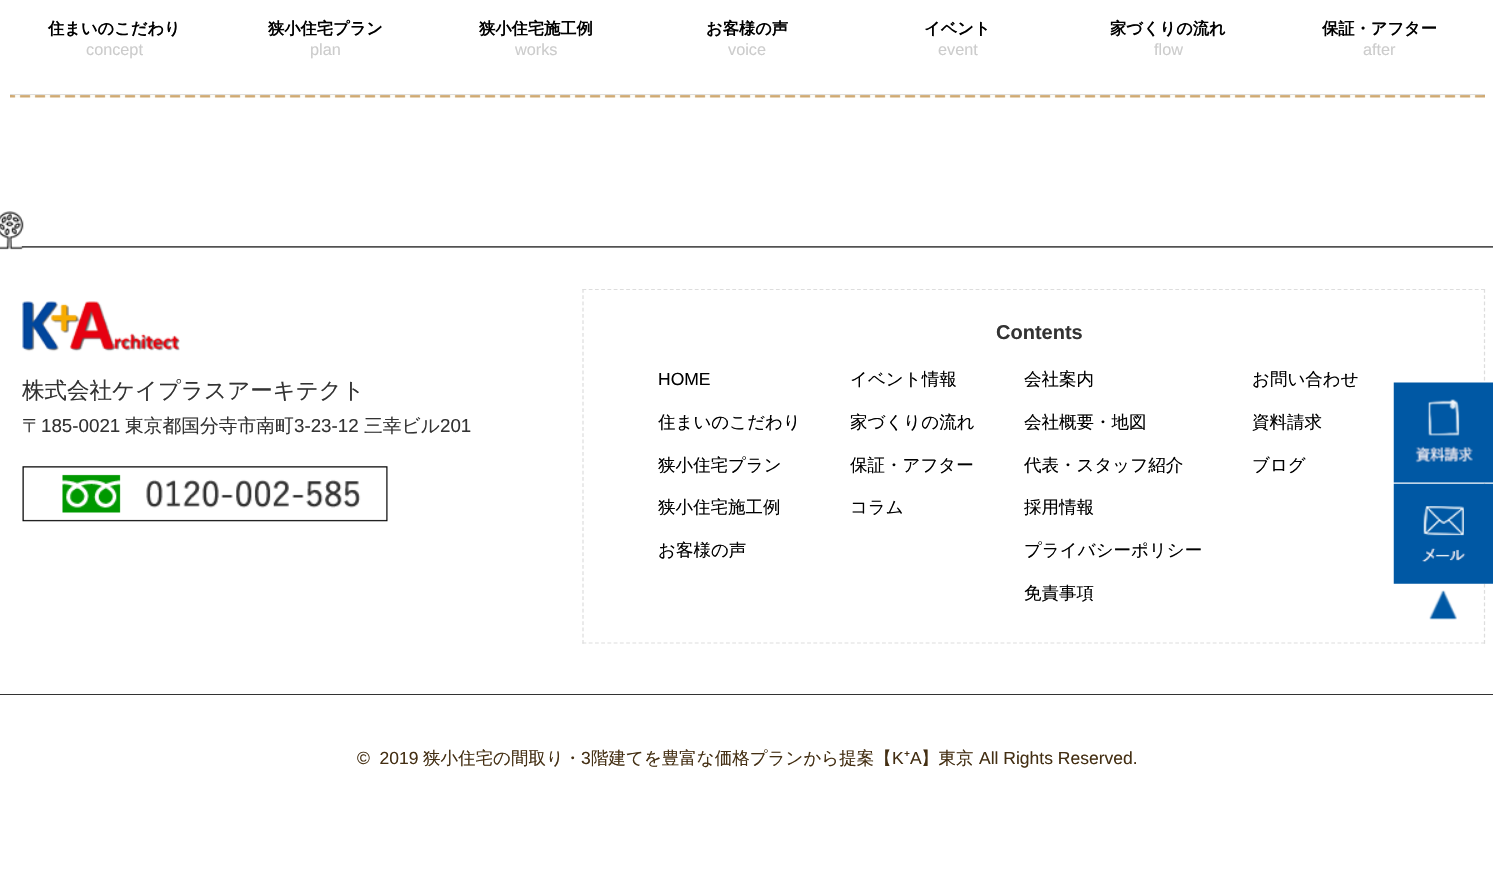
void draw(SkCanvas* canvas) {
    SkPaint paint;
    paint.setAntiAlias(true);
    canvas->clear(0xFFFFFFFF);
    paint.setColor(0xFFDDDDDD);
    canvas->drawRect(SkRect::MakeXYWH(10, 94, 1475, 1), paint);
    SkFont font1(fontMgr->matchFamilyStyle("WenQuanYi Zen Hei", SkFontStyle::Bold()), 16.25f);
    font1.setSubpixel(true);
    paint.setColor(0xFF000000);
    canvas->drawString("住まいのこだわり", 48, 34, font1, paint);
    SkFont font2(fontMgr->matchFamilyStyle("Liberation Sans", SkFontStyle::Normal()), 16.25f);
    font2.setSubpixel(true);
    paint.setColor(0xFFCCCCCC);
    canvas->drawString("concept", 86, 55, font2, paint);
    paint.setColor(0xFF000000);
    canvas->drawString("狭小住宅プラン", 268, 34, font1, paint);
    paint.setColor(0xFFCCCCCC);
    canvas->drawString("plan", 310, 55, font2, paint);
    paint.setColor(0xFF000000);
    canvas->drawString("狭小住宅施工例", 479, 34, font1, paint);
    paint.setColor(0xFFCCCCCC);
    canvas->drawString("works", 515, 55, font2, paint);
    paint.setColor(0xFF000000);
    canvas->drawString("お客様の声", 706, 34, font1, paint);
    paint.setColor(0xFFCCCCCC);
    canvas->drawString("voice", 728, 55, font2, paint);
    paint.setColor(0xFF000000);
    canvas->drawString("イベント", 924, 34, font1, paint);
    paint.setColor(0xFFCCCCCC);
    canvas->drawString("event", 938, 55, font2, paint);
    paint.setColor(0xFF000000);
    canvas->drawString("家づくりの流れ", 1110, 34, font1, paint);
    paint.setColor(0xFFCCCCCC);
    canvas->drawString("flow", 1154, 55, font2, paint);
    paint.setColor(0xFF000000);
    canvas->drawString("保証・アフター", 1322, 34, font1, paint);
    paint.setColor(0xFFCCCCCC);
    canvas->drawString("after", 1363, 55, font2, paint);
    canvas->drawImageRect(SkImages::DeferredFromEncodedData(SkData::MakeFromFileName("img1.png")), SkRect::MakeXYWH(10, 95, 1475, 3), SkSamplingOptions());
    canvas->drawImageRect(SkImages::DeferredFromEncodedData(SkData::MakeFromFileName("img2.png")), SkRect::MakeXYWH(0, 211, 1493, 39), SkSamplingOptions());
    canvas->drawImageRect(SkImages::DeferredFromEncodedData(SkData::MakeFromFileName("img3.png")), SkRect::MakeXYWH(22, 301, 158, 51), SkSamplingOptions());
    SkFont font3(fontMgr->matchFamilyStyle("WenQuanYi Zen Hei", SkFontStyle(500, SkFontStyle::kNormal_Width, SkFontStyle::kUpright_Slant)), 22.5f);
    font3.setSubpixel(true);
    paint.setColor(0xFF333333);
    canvas->drawString("株式会社ケイプラスアーキテクト", 22, 398, font3, paint);
    SkFont font4(fontMgr->matchFamilyStyle("WenQuanYi Zen Hei", SkFontStyle(500, SkFontStyle::kNormal_Width, SkFontStyle::kUpright_Slant)), 18.75f);
    font4.setSubpixel(true);
    canvas->drawString("〒", 22, 432, font4, paint);
    SkFont font5(fontMgr->matchFamilyStyle("Liberation Sans", SkFontStyle::Normal()), 18.75f);
    font5.setSubpixel(true);
    canvas->drawString("185-0021", 41, 432, font5, paint);
    canvas->drawString("東京都国分寺市南町", 125, 432, font4, paint);
    canvas->drawString("3-23-12", 294, 432, font5, paint);
    canvas->drawString("三幸ビル", 364, 432, font4, paint);
    canvas->drawString("201", 440, 432, font5, paint);
    canvas->drawImageRect(SkImages::DeferredFromEncodedData(SkData::MakeFromFileName("img4.png")), SkRect::MakeXYWH(22, 466, 366, 56), SkSamplingOptions());
    paint.setStyle(SkPaint::kStroke_Style);
    paint.setStrokeWidth(1.2f);
    paint.setColor(0xFFDDDDDD);
    paint.setPathEffect(SkDashPathEffect::Make({{3.75f, 2.49f}}, 0));
    canvas->drawPath(SkPathBuilder().moveTo(582.5f, 289.5f).lineTo(1485, 289.5f).detach(), paint);
    paint.setPathEffect(nullptr);
    paint.setPathEffect(SkDashPathEffect::Make({{3.75f, 2.52f}}, 0));
    canvas->drawPath(SkPathBuilder().moveTo(1484.5f, 289).lineTo(1484.5f, 644).detach(), paint);
    paint.setPathEffect(nullptr);
    paint.setPathEffect(SkDashPathEffect::Make({{3.75f, 2.49f}}, 0));
    canvas->drawPath(SkPathBuilder().moveTo(582.5f, 643).lineTo(1485, 643).detach(), paint);
    paint.setPathEffect(nullptr);
    paint.setPathEffect(SkDashPathEffect::Make({{3.75f, 2.52f}}, 0));
    canvas->drawPath(SkPathBuilder().moveTo(583, 289).lineTo(583, 644).detach(), paint);
    paint.setPathEffect(nullptr);
    SkFont font6(fontMgr->matchFamilyStyle("Liberation Sans", SkFontStyle::Bold()), 20);
    font6.setSubpixel(true);
    paint.setStyle(SkPaint::kFill_Style);
    paint.setColor(0xFF333333);
    canvas->drawString("Contents", 996, 339, font6, paint);
    SkFont font7(fontMgr->matchFamilyStyle("Liberation Sans", SkFontStyle::Normal()), 17.5f);
    font7.setSubpixel(true);
    paint.setColor(0xFF000000);
    canvas->drawString("HOME", 658, 385, font7, paint);
    SkFont font8(fontMgr->matchFamilyStyle("WenQuanYi Zen Hei", SkFontStyle(500, SkFontStyle::kNormal_Width, SkFontStyle::kUpright_Slant)), 17.5f);
    font8.setSubpixel(true);
    canvas->drawString("住まいのこだわり", 658, 428, font8, paint);
    canvas->drawString("狭小住宅プラン", 658, 471, font8, paint);
    canvas->drawString("狭小住宅施工例", 658, 513, font8, paint);
    canvas->drawString("お客様の声", 658, 556, font8, paint);
    canvas->drawString("イベント情報", 850, 385, font8, paint);
    canvas->drawString("家づくりの流れ", 850, 428, font8, paint);
    canvas->drawString("保証・アフター", 850, 471, font8, paint);
    canvas->drawString("コラム", 850, 513, font8, paint);
    canvas->drawString("会社案内", 1024, 385, font8, paint);
    canvas->drawString("会社概要・地図", 1024, 428, font8, paint);
    canvas->drawString("代表・スタッフ紹介", 1024, 471, font8, paint);
    canvas->drawString("採用情報", 1024, 513, font8, paint);
    canvas->drawString("プライバシーポリシー", 1024, 556, font8, paint);
    canvas->drawString("免責事項", 1024, 599, font8, paint);
    canvas->drawString("お問い合わせ", 1252, 385, font8, paint);
    canvas->drawString("資料請求", 1252, 428, font8, paint);
    canvas->drawString("ブログ", 1252, 471, font8, paint);
    canvas->drawImageRect(SkImages::DeferredFromEncodedData(SkData::MakeFromFileName("img5.png")), SkRect::MakeXYWH(1393, 382, 100, 101), SkSamplingOptions());
    canvas->drawImageRect(SkImages::DeferredFromEncodedData(SkData::MakeFromFileName("img6.png")), SkRect::MakeXYWH(1393, 483, 100, 101), SkSamplingOptions());
    canvas->drawImageRect(SkImages::DeferredFromEncodedData(SkData::MakeFromFileName("img7.png")), SkRect::MakeXYWH(1429, 590, 28, 30), SkSamplingOptions());
    paint.setColor(0xFF333333);
    canvas->drawRect(SkRect::MakeXYWH(0, 694, 1493, 1), paint);
    paint.setColor(0xFF442F13);
    canvas->drawString("©  2019", 357, 764, font7, paint);
    canvas->drawString("狭小住宅の間取り・", 423, 764, font8, paint);
    canvas->drawString("3", 581, 764, font7, paint);
    canvas->drawString("階建てを豊富な価格プランから提案【", 591, 764, font8, paint);
    canvas->drawString("K", 892, 764, font7, paint);
    SkFont font9(fontMgr->matchFamilyStyle("Noto Sans", SkFontStyle(500, SkFontStyle::kNormal_Width, SkFontStyle::kUpright_Slant)), 17.5f);
    font9.setSubpixel(true);
    canvas->drawString("⁺", 904, 764, font9, paint);
    canvas->drawString("A", 910, 764, font7, paint);
    canvas->drawString("】東京", 921, 764, font8, paint);
    canvas->drawString("All Rights Reserved.", 979, 764, font7, paint);
}
